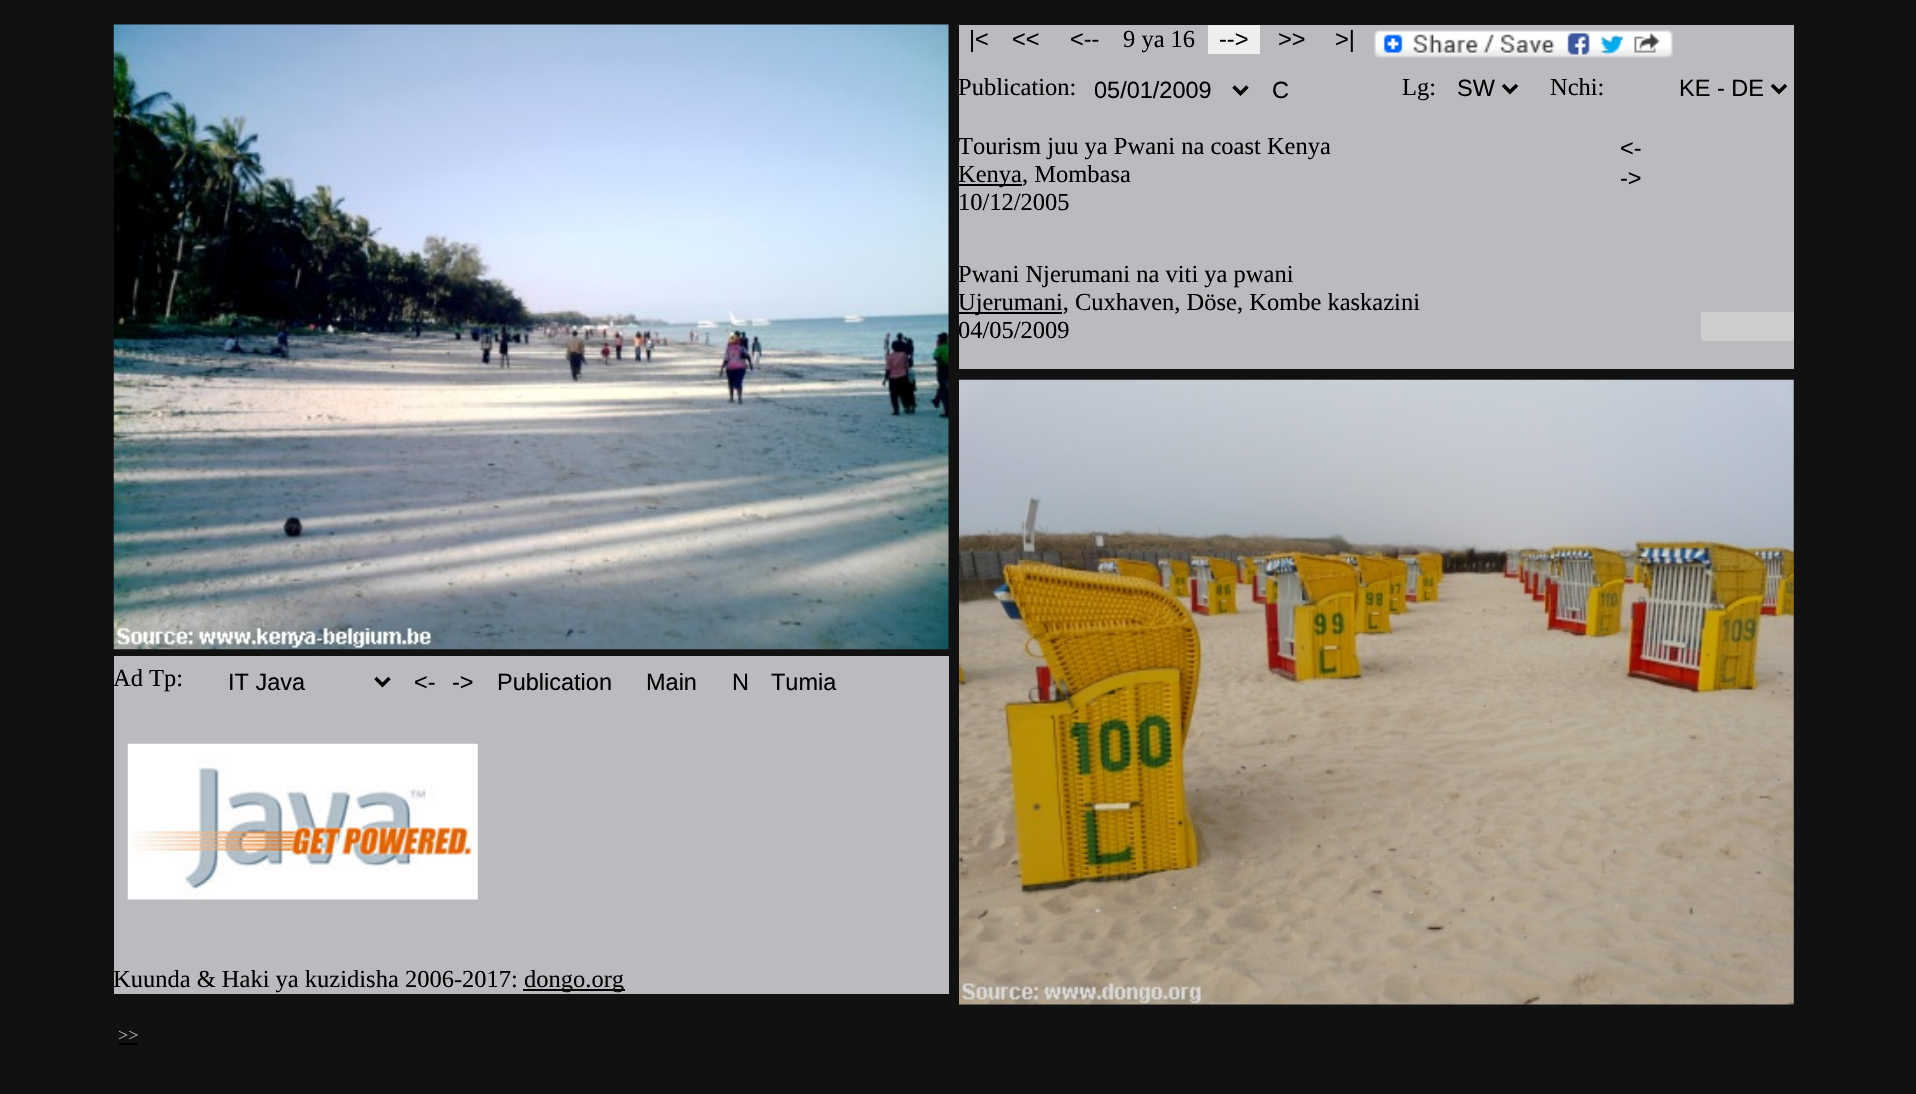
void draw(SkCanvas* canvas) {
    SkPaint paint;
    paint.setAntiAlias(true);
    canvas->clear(0xFF111111);
    paint.setColor(0xFFBBBBBF);
    canvas->drawRect(SkRect::MakeXYWH(959, 25, 835, 344), paint);
    SkFont font1(fontMgr->matchFamilyStyle("Liberation Sans", SkFontStyle::Normal()), 23.5f);
    font1.setSubpixel(true);
    paint.setColor(0xFF000000);
    canvas->drawString("|<", 969, 47, font1, paint);
    canvas->drawString("<<", 1012, 47, font1, paint);
    canvas->drawString("<--", 1070, 47, font1, paint);
    SkFont font2(fontMgr->matchFamilyStyle("Liberation Serif", SkFontStyle::Normal()), 24.5f);
    font2.setSubpixel(true);
    canvas->drawString("9 ya 16", 1123, 47, font2, paint);
    paint.setColor(0xFFEEEEEF);
    canvas->drawRect(SkRect::MakeXYWH(1208, 25, 52, 29), paint);
    paint.setColor(0xFF000000);
    canvas->drawString("-->", 1219, 47, font1, paint);
    canvas->drawString(">>", 1278, 47, font1, paint);
    canvas->drawString(">|", 1335, 47, font1, paint);
    canvas->drawImageRect(SkImages::DeferredFromEncodedData(SkData::MakeFromFileName("img1.png")), SkRect::MakeXYWH(1373, 29, 300, 29), SkSamplingOptions());
    canvas->drawString("Publication:", 958, 95, font2, paint);
    paint.setStyle(SkPaint::kStroke_Style);
    paint.setStrokeWidth(3.5f);
    canvas->drawPath(SkPathBuilder().moveTo(1233.5f, 86.5f).lineTo(1240.5f, 93.5f).lineTo(1247.5f, 86.5f).detach(), paint);
    paint.setStyle(SkPaint::kFill_Style);
    canvas->drawString("05/01/2009", 1094, 98, font1, paint);
    canvas->drawString("C", 1272, 98, font1, paint);
    canvas->drawString("Lg:", 1402, 95, font2, paint);
    paint.setStyle(SkPaint::kStroke_Style);
    canvas->drawPath(SkPathBuilder().moveTo(1503, 85).lineTo(1510, 92).lineTo(1517, 85).detach(), paint);
    paint.setStyle(SkPaint::kFill_Style);
    canvas->drawString("SW", 1457, 96, font1, paint);
    canvas->drawString("Nchi:", 1550, 95, font2, paint);
    paint.setStyle(SkPaint::kStroke_Style);
    canvas->drawPath(SkPathBuilder().moveTo(1772, 85).lineTo(1779, 92).lineTo(1786, 85).detach(), paint);
    paint.setStyle(SkPaint::kFill_Style);
    canvas->drawString("KE - DE", 1679, 96, font1, paint);
    canvas->drawString("Tourism juu ya Pwani na coast Kenya", 958, 154, font2, paint);
    canvas->drawRect(SkRect::MakeXYWH(959, 184, 63, 2), paint);
    canvas->drawString("Kenya, Mombasa", 958, 182, font2, paint);
    canvas->drawString("10/12/2005", 958, 210, font2, paint);
    canvas->drawString("Pwani Njerumani na viti ya pwani", 958, 282, font2, paint);
    canvas->drawRect(SkRect::MakeXYWH(959, 312, 103, 2), paint);
    canvas->drawString("Ujerumani, Cuxhaven, Döse, Kombe kaskazini", 958, 310, font2, paint);
    canvas->drawString("04/05/2009", 958, 338, font2, paint);
    canvas->drawString("<-", 1620, 156, font1, paint);
    canvas->drawString("->", 1620, 186, font1, paint);
    paint.setColor(0xFFCECECE);
    canvas->drawPath(SkPathBuilder().moveTo(1701, 312).lineTo(1794, 312).lineTo(1794, 337).cubicTo(1794, 339, 1792, 341, 1790, 341).lineTo(1705, 341).cubicTo(1703, 341, 1701, 339, 1701, 337).close().detach(), paint);
    canvas->drawImageRect(SkImages::DeferredFromEncodedData(SkData::MakeFromFileName("img2.png")), SkRect::MakeXYWH(959, 379, 835, 626), SkSamplingOptions());
    canvas->drawImageRect(SkImages::DeferredFromEncodedData(SkData::MakeFromFileName("img3.png")), SkRect::MakeXYWH(113, 24, 836, 626), SkSamplingOptions());
    paint.setColor(0xFFBBBBBF);
    canvas->drawRect(SkRect::MakeXYWH(114, 656, 835, 338), paint);
    paint.setColor(0xFF000000);
    canvas->drawString("Ad Tp:", 113, 686, font2, paint);
    paint.setStyle(SkPaint::kStroke_Style);
    canvas->drawPath(SkPathBuilder().moveTo(375.5f, 678).lineTo(382.5f, 685).lineTo(389.5f, 678).detach(), paint);
    paint.setStyle(SkPaint::kFill_Style);
    canvas->drawString("IT Java", 228, 690, font1, paint);
    canvas->drawString("<-", 414, 690, font1, paint);
    canvas->drawString("->", 452, 690, font1, paint);
    canvas->drawString("Publication", 497, 690, font1, paint);
    canvas->drawString("Main", 646, 690, font1, paint);
    canvas->drawString("N", 732, 690, font1, paint);
    canvas->drawString("Tumia", 771, 690, font1, paint);
    canvas->drawImageRect(SkImages::DeferredFromEncodedData(SkData::MakeFromFileName("img4.png")), SkRect::MakeXYWH(127, 743, 351, 157), SkSamplingOptions());
    canvas->drawString("Kuunda & Haki ya kuzidisha 2006-2017:", 113, 987, font2, paint);
    canvas->drawRect(SkRect::MakeXYWH(523, 989, 102, 2), paint);
    canvas->drawString("dongo.org", 524, 987, font2, paint);
    SkFont font3(fontMgr->matchFamilyStyle("Liberation Serif", SkFontStyle::Normal()), 18);
    font3.setSubpixel(true);
    paint.setColor(0xFFBBBBBB);
    canvas->drawString(">>", 118, 1041, font3, paint);
    paint.setColor(0xFF000000);
    canvas->drawRect(SkRect::MakeXYWH(119, 1043, 19, 2), paint);
}
